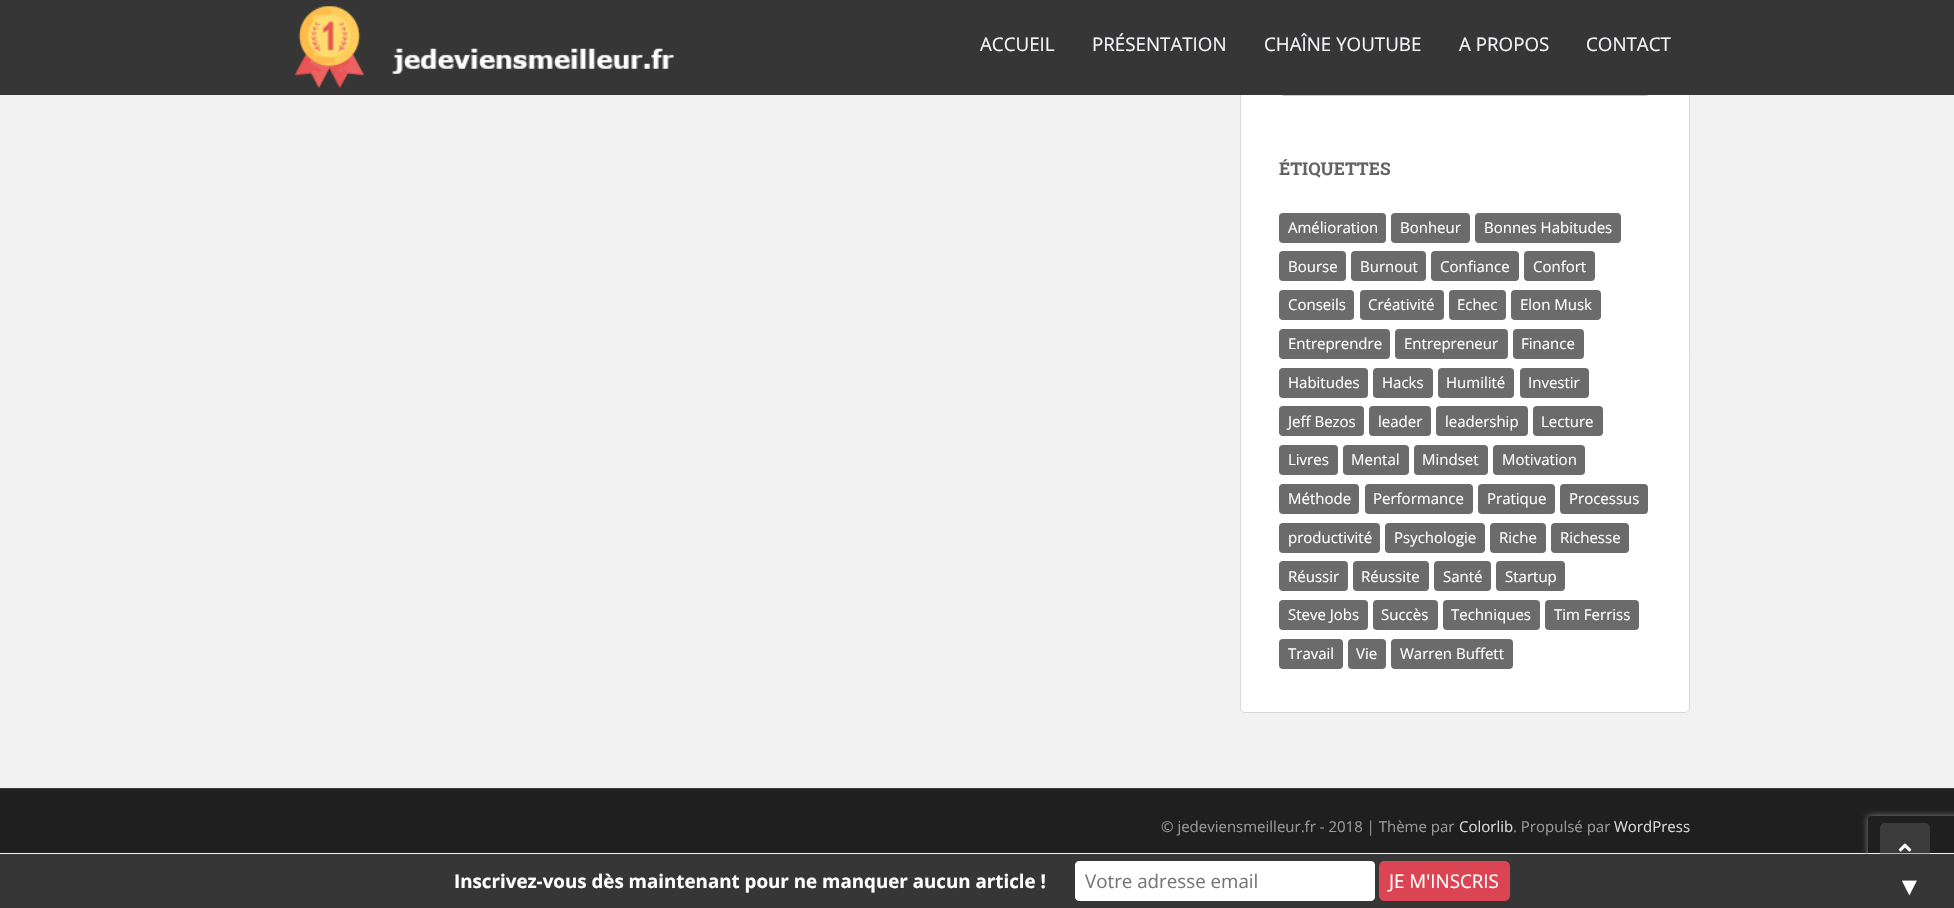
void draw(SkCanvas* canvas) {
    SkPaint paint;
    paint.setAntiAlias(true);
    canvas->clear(0xFFF2F2F2);
    paint.setColor(0xFFFFFFFF);
    canvas->drawRoundRect(SkRect::MakeXYWH(1240.5f, -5.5f, 449, 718), 4.5f, 4.5f, paint);
    paint.setStyle(SkPaint::kStroke_Style);
    paint.setStrokeWidth(1);
    paint.setColor(0xFFDADADA);
    canvas->drawRoundRect(SkRect::MakeXYWH(1240.5f, -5.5f, 449, 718), 4.5f, 4.5f, paint);
    paint.setColor(0xFFCCCCCC);
    canvas->drawRoundRect(SkRect::MakeXYWH(1279.5f, 54.5f, 371, 41), 4.5f, 4.5f, paint);
    paint.setStyle(SkPaint::kFill_Style);
    paint.setColor(0xFF363636);
    canvas->drawRect(SkRect::MakeXYWH(0, 0, 1954, 95), paint);
    canvas->drawImageRect(SkImages::DeferredFromEncodedData(SkData::MakeFromFileName("img1.png")), SkRect::MakeXYWH(294, 6, 380, 82), SkSamplingOptions());
    SkFont font1(fontMgr->matchFamilyStyle("Open Sans", SkFontStyle::Normal()), 18.75f);
    font1.setSubpixel(true);
    paint.setColor(0xFFF5F7FA);
    canvas->drawString("ACCUEIL", 980, 51, font1, paint);
    canvas->drawString("PRÉSENTATION", 1092, 51, font1, paint);
    canvas->drawString("CHAÎNE YOUTUBE", 1264, 51, font1, paint);
    canvas->drawString("A PROPOS", 1459, 51, font1, paint);
    canvas->drawString("CONTACT", 1586, 51, font1, paint);
    SkFont font2(fontMgr->matchFamilyStyle("Roboto Slab", SkFontStyle::Bold()), 17.5f);
    font2.setSubpixel(true);
    paint.setColor(0xFF636467);
    canvas->drawString("ÉTIQUETTES", 1279, 175, font2, paint);
    paint.setColor(0xFF6B6B6B);
    canvas->drawRoundRect(SkRect::MakeXYWH(1279, 213, 107, 30), 4, 4, paint);
    SkFont font3(fontMgr->matchFamilyStyle("Open Sans", SkFontStyle::Normal()), 15);
    font3.setSubpixel(true);
    paint.setColor(0xFFFFFFFF);
    canvas->drawString("Amélioration", 1288, 233, font3, paint);
    paint.setColor(0xFF6B6B6B);
    canvas->drawRoundRect(SkRect::MakeXYWH(1391, 213, 79, 30), 4, 4, paint);
    paint.setColor(0xFFFFFFFF);
    canvas->drawString("Bonheur", 1400, 233, font3, paint);
    paint.setColor(0xFF6B6B6B);
    canvas->drawRoundRect(SkRect::MakeXYWH(1475, 213, 146, 30), 4, 4, paint);
    paint.setColor(0xFFFFFFFF);
    canvas->drawString("Bonnes Habitudes", 1484, 233, font3, paint);
    paint.setColor(0xFF6B6B6B);
    canvas->drawRoundRect(SkRect::MakeXYWH(1279, 251, 67, 30), 4, 4, paint);
    paint.setColor(0xFFFFFFFF);
    canvas->drawString("Bourse", 1288, 272, font3, paint);
    paint.setColor(0xFF6B6B6B);
    canvas->drawRoundRect(SkRect::MakeXYWH(1351, 251, 75, 30), 4, 4, paint);
    paint.setColor(0xFFFFFFFF);
    canvas->drawString("Burnout", 1360, 272, font3, paint);
    paint.setColor(0xFF6B6B6B);
    canvas->drawRoundRect(SkRect::MakeXYWH(1431, 251, 88, 30), 4, 4, paint);
    paint.setColor(0xFFFFFFFF);
    canvas->drawString("Confiance", 1440, 272, font3, paint);
    paint.setColor(0xFF6B6B6B);
    canvas->drawRoundRect(SkRect::MakeXYWH(1524, 251, 71, 30), 4, 4, paint);
    paint.setColor(0xFFFFFFFF);
    canvas->drawString("Confort", 1533, 272, font3, paint);
    paint.setColor(0xFF6B6B6B);
    canvas->drawRoundRect(SkRect::MakeXYWH(1279, 290, 75, 30), 4, 4, paint);
    paint.setColor(0xFFFFFFFF);
    canvas->drawString("Conseils", 1288, 310, font3, paint);
    paint.setColor(0xFF6B6B6B);
    canvas->drawRoundRect(SkRect::MakeXYWH(1360, 290, 84, 30), 4, 4, paint);
    paint.setColor(0xFFFFFFFF);
    canvas->drawString("Créativité", 1368, 310, font3, paint);
    paint.setColor(0xFF6B6B6B);
    canvas->drawRoundRect(SkRect::MakeXYWH(1449, 290, 57, 30), 4, 4, paint);
    paint.setColor(0xFFFFFFFF);
    canvas->drawString("Echec", 1457, 310, font3, paint);
    paint.setColor(0xFF6B6B6B);
    canvas->drawRoundRect(SkRect::MakeXYWH(1511, 290, 90, 30), 4, 4, paint);
    paint.setColor(0xFFFFFFFF);
    canvas->drawString("Elon Musk", 1520, 310, font3, paint);
    paint.setColor(0xFF6B6B6B);
    canvas->drawRoundRect(SkRect::MakeXYWH(1279, 329, 111, 30), 4, 4, paint);
    paint.setColor(0xFFFFFFFF);
    canvas->drawString("Entreprendre", 1288, 349, font3, paint);
    paint.setColor(0xFF6B6B6B);
    canvas->drawRoundRect(SkRect::MakeXYWH(1395, 329, 113, 30), 4, 4, paint);
    paint.setColor(0xFFFFFFFF);
    canvas->drawString("Entrepreneur", 1404, 349, font3, paint);
    paint.setColor(0xFF6B6B6B);
    canvas->drawRoundRect(SkRect::MakeXYWH(1513, 329, 71, 30), 4, 4, paint);
    paint.setColor(0xFFFFFFFF);
    canvas->drawString("Finance", 1521, 349, font3, paint);
    paint.setColor(0xFF6B6B6B);
    canvas->drawRoundRect(SkRect::MakeXYWH(1279, 368, 89, 30), 4, 4, paint);
    paint.setColor(0xFFFFFFFF);
    canvas->drawString("Habitudes", 1288, 388, font3, paint);
    paint.setColor(0xFF6B6B6B);
    canvas->drawRoundRect(SkRect::MakeXYWH(1373, 368, 60, 30), 4, 4, paint);
    paint.setColor(0xFFFFFFFF);
    canvas->drawString("Hacks", 1382, 388, font3, paint);
    paint.setColor(0xFF6B6B6B);
    canvas->drawRoundRect(SkRect::MakeXYWH(1438, 368, 76, 30), 4, 4, paint);
    paint.setColor(0xFFFFFFFF);
    canvas->drawString("Humilité", 1446, 388, font3, paint);
    paint.setColor(0xFF6B6B6B);
    canvas->drawRoundRect(SkRect::MakeXYWH(1520, 368, 69, 30), 4, 4, paint);
    paint.setColor(0xFFFFFFFF);
    canvas->drawString("Investir", 1528, 388, font3, paint);
    paint.setColor(0xFF6B6B6B);
    canvas->drawRoundRect(SkRect::MakeXYWH(1279, 406, 85, 30), 4, 4, paint);
    paint.setColor(0xFFFFFFFF);
    canvas->drawString("Jeff Bezos", 1288, 427, font3, paint);
    paint.setColor(0xFF6B6B6B);
    canvas->drawRoundRect(SkRect::MakeXYWH(1369, 406, 62, 30), 4, 4, paint);
    paint.setColor(0xFFFFFFFF);
    canvas->drawString("leader", 1378, 427, font3, paint);
    paint.setColor(0xFF6B6B6B);
    canvas->drawRoundRect(SkRect::MakeXYWH(1436, 406, 92, 30), 4, 4, paint);
    paint.setColor(0xFFFFFFFF);
    canvas->drawString("leadership", 1445, 427, font3, paint);
    paint.setColor(0xFF6B6B6B);
    canvas->drawRoundRect(SkRect::MakeXYWH(1533, 406, 70, 30), 4, 4, paint);
    paint.setColor(0xFFFFFFFF);
    canvas->drawString("Lecture", 1541, 427, font3, paint);
    paint.setColor(0xFF6B6B6B);
    canvas->drawRoundRect(SkRect::MakeXYWH(1279, 445, 59, 30), 4, 4, paint);
    paint.setColor(0xFFFFFFFF);
    canvas->drawString("Livres", 1288, 465, font3, paint);
    paint.setColor(0xFF6B6B6B);
    canvas->drawRoundRect(SkRect::MakeXYWH(1343, 445, 66, 30), 4, 4, paint);
    paint.setColor(0xFFFFFFFF);
    canvas->drawString("Mental", 1351, 465, font3, paint);
    paint.setColor(0xFF6B6B6B);
    canvas->drawRoundRect(SkRect::MakeXYWH(1414, 445, 74, 30), 4, 4, paint);
    paint.setColor(0xFFFFFFFF);
    canvas->drawString("Mindset", 1422, 465, font3, paint);
    paint.setColor(0xFF6B6B6B);
    canvas->drawRoundRect(SkRect::MakeXYWH(1493, 445, 92, 30), 4, 4, paint);
    paint.setColor(0xFFFFFFFF);
    canvas->drawString("Motivation", 1502, 465, font3, paint);
    paint.setColor(0xFF6B6B6B);
    canvas->drawRoundRect(SkRect::MakeXYWH(1279, 484, 80, 30), 4, 4, paint);
    paint.setColor(0xFFFFFFFF);
    canvas->drawString("Méthode", 1288, 504, font3, paint);
    paint.setColor(0xFF6B6B6B);
    canvas->drawRoundRect(SkRect::MakeXYWH(1365, 484, 108, 30), 4, 4, paint);
    paint.setColor(0xFFFFFFFF);
    canvas->drawString("Performance", 1373, 504, font3, paint);
    paint.setColor(0xFF6B6B6B);
    canvas->drawRoundRect(SkRect::MakeXYWH(1478, 484, 77, 30), 4, 4, paint);
    paint.setColor(0xFFFFFFFF);
    canvas->drawString("Pratique", 1487, 504, font3, paint);
    paint.setColor(0xFF6B6B6B);
    canvas->drawRoundRect(SkRect::MakeXYWH(1560, 484, 88, 30), 4, 4, paint);
    paint.setColor(0xFFFFFFFF);
    canvas->drawString("Processus", 1569, 504, font3, paint);
    paint.setColor(0xFF6B6B6B);
    canvas->drawRoundRect(SkRect::MakeXYWH(1279, 523, 101, 30), 4, 4, paint);
    paint.setColor(0xFFFFFFFF);
    canvas->drawString("productivité", 1288, 543, font3, paint);
    paint.setColor(0xFF6B6B6B);
    canvas->drawRoundRect(SkRect::MakeXYWH(1385, 523, 100, 30), 4, 4, paint);
    paint.setColor(0xFFFFFFFF);
    canvas->drawString("Psychologie", 1394, 543, font3, paint);
    paint.setColor(0xFF6B6B6B);
    canvas->drawRoundRect(SkRect::MakeXYWH(1490, 523, 56, 30), 4, 4, paint);
    paint.setColor(0xFFFFFFFF);
    canvas->drawString("Riche", 1499, 543, font3, paint);
    paint.setColor(0xFF6B6B6B);
    canvas->drawRoundRect(SkRect::MakeXYWH(1551, 523, 78, 30), 4, 4, paint);
    paint.setColor(0xFFFFFFFF);
    canvas->drawString("Richesse", 1560, 543, font3, paint);
    paint.setColor(0xFF6B6B6B);
    canvas->drawRoundRect(SkRect::MakeXYWH(1279, 561, 69, 30), 4, 4, paint);
    paint.setColor(0xFFFFFFFF);
    canvas->drawString("Réussir", 1288, 582, font3, paint);
    paint.setColor(0xFF6B6B6B);
    canvas->drawRoundRect(SkRect::MakeXYWH(1353, 561, 76, 30), 4, 4, paint);
    paint.setColor(0xFFFFFFFF);
    canvas->drawString("Réussite", 1361, 582, font3, paint);
    paint.setColor(0xFF6B6B6B);
    canvas->drawRoundRect(SkRect::MakeXYWH(1434, 561, 57, 30), 4, 4, paint);
    paint.setColor(0xFFFFFFFF);
    canvas->drawString("Santé", 1443, 582, font3, paint);
    paint.setColor(0xFF6B6B6B);
    canvas->drawRoundRect(SkRect::MakeXYWH(1496, 561, 69, 30), 4, 4, paint);
    paint.setColor(0xFFFFFFFF);
    canvas->drawString("Startup", 1505, 582, font3, paint);
    paint.setColor(0xFF6B6B6B);
    canvas->drawRoundRect(SkRect::MakeXYWH(1279, 600, 89, 30), 4, 4, paint);
    paint.setColor(0xFFFFFFFF);
    canvas->drawString("Steve Jobs", 1288, 620, font3, paint);
    paint.setColor(0xFF6B6B6B);
    canvas->drawRoundRect(SkRect::MakeXYWH(1373, 600, 65, 30), 4, 4, paint);
    paint.setColor(0xFFFFFFFF);
    canvas->drawString("Succès", 1381, 620, font3, paint);
    paint.setColor(0xFF6B6B6B);
    canvas->drawRoundRect(SkRect::MakeXYWH(1443, 600, 97, 30), 4, 4, paint);
    paint.setColor(0xFFFFFFFF);
    canvas->drawString("Techniques", 1451, 620, font3, paint);
    paint.setColor(0xFF6B6B6B);
    canvas->drawRoundRect(SkRect::MakeXYWH(1545, 600, 94, 30), 4, 4, paint);
    paint.setColor(0xFFFFFFFF);
    canvas->drawString("Tim Ferriss", 1554, 620, font3, paint);
    paint.setColor(0xFF6B6B6B);
    canvas->drawRoundRect(SkRect::MakeXYWH(1279, 639, 64, 30), 4, 4, paint);
    paint.setColor(0xFFFFFFFF);
    canvas->drawString("Travail", 1288, 659, font3, paint);
    paint.setColor(0xFF6B6B6B);
    canvas->drawRoundRect(SkRect::MakeXYWH(1348, 639, 38, 30), 4, 4, paint);
    paint.setColor(0xFFFFFFFF);
    canvas->drawString("Vie", 1356, 659, font3, paint);
    paint.setColor(0xFF6B6B6B);
    canvas->drawRoundRect(SkRect::MakeXYWH(1391, 639, 122, 30), 4, 4, paint);
    paint.setColor(0xFFFFFFFF);
    canvas->drawString("Warren Buffett", 1400, 659, font3, paint);
    paint.setColor(0xFF1F1F1F);
    canvas->drawRect(SkRect::MakeXYWH(0, 789, 1954, 64), paint);
    paint.setColor(0xFF3A3A3A);
    canvas->drawRect(SkRect::MakeXYWH(0, 788, 1954, 1), paint);
    paint.setColor(0xFF999999);
    canvas->drawString("© jedeviensmeilleur.fr - 2018 | Thème par", 1161, 832, font3, paint);
    paint.setColor(0xFFDADADA);
    canvas->drawString("Colorlib", 1459, 832, font3, paint);
    paint.setColor(0xFF999999);
    canvas->drawString(". Propulsé par", 1513, 832, font3, paint);
    paint.setColor(0xFFDADADA);
    canvas->drawString("WordPress", 1614, 832, font3, paint);
    canvas->save();
    canvas->clipPath(SkPathBuilder(SkPathFillType::kEvenOdd).moveTo(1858, 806).lineTo(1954, 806).lineTo(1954, 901).lineTo(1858, 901).close().moveTo(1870.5f, 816).lineTo(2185.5f, 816).cubicTo(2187, 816, 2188, 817, 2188, 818.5f).lineTo(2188, 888.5f).cubicTo(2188, 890, 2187, 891, 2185.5f, 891).lineTo(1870.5f, 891).cubicTo(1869, 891, 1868, 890, 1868, 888.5f).lineTo(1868, 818.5f).cubicTo(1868, 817, 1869, 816, 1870.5f, 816).close().detach(), true);
    paint.setColor(0xFF808080);
    paint.setMaskFilter(SkMaskFilter::MakeBlur(kNormal_SkBlurStyle, 3));
    canvas->drawRoundRect(SkRect::MakeXYWH(1868, 816, 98, 75), 2.5f, 2.5f, paint);
    paint.setMaskFilter(nullptr);
    canvas->restore();
    paint.setColor(0x66646464);
    canvas->drawRoundRect(SkRect::MakeXYWH(1880, 823, 50, 50), 5, 5, paint);
    canvas->drawImageRect(SkImages::DeferredFromEncodedData(SkData::MakeFromFileName("img2.png")), SkRect::MakeXYWH(1898, 843, 14, 9), SkSamplingOptions());
    paint.setColor(0xFF363636);
    canvas->drawRect(SkRect::MakeXYWH(0, 854, 1954, 54), paint);
    SkFont font4(fontMgr->matchFamilyStyle("Open Sans", SkFontStyle::Bold()), 18.75f);
    font4.setSubpixel(true);
    paint.setColor(0xFFFFFFFF);
    canvas->drawString("Inscrivez-vous dès maintenant pour ne manquer aucun article !", 454, 888, font4, paint);
    canvas->drawRoundRect(SkRect::MakeXYWH(1075.5f, 861.5f, 299, 39), 3.5f, 3.5f, paint);
    paint.setStyle(SkPaint::kStroke_Style);
    canvas->drawRoundRect(SkRect::MakeXYWH(1075.5f, 861.5f, 299, 39), 3.5f, 3.5f, paint);
    paint.setStyle(SkPaint::kFill_Style);
    paint.setColor(0xFF757575);
    canvas->drawString("Votre adresse email", 1085, 888, font1, paint);
    paint.setColor(0xFFDA4453);
    canvas->drawRoundRect(SkRect::MakeXYWH(1379.5f, 861.5f, 130, 39), 4.5f, 4.5f, paint);
    paint.setStyle(SkPaint::kStroke_Style);
    canvas->drawRoundRect(SkRect::MakeXYWH(1379.5f, 861.5f, 130, 39), 4.5f, 4.5f, paint);
    paint.setStyle(SkPaint::kFill_Style);
    paint.setColor(0xFFFFFFFF);
    canvas->drawString("JE M'INSCRIS", 1389, 888, font1, paint);
    SkFont font5(fontMgr->matchFamilyStyle("Liberation Sans", SkFontStyle::Normal()), 25);
    font5.setSubpixel(true);
    canvas->drawString("▼", 1897, 895, font5, paint);
}
